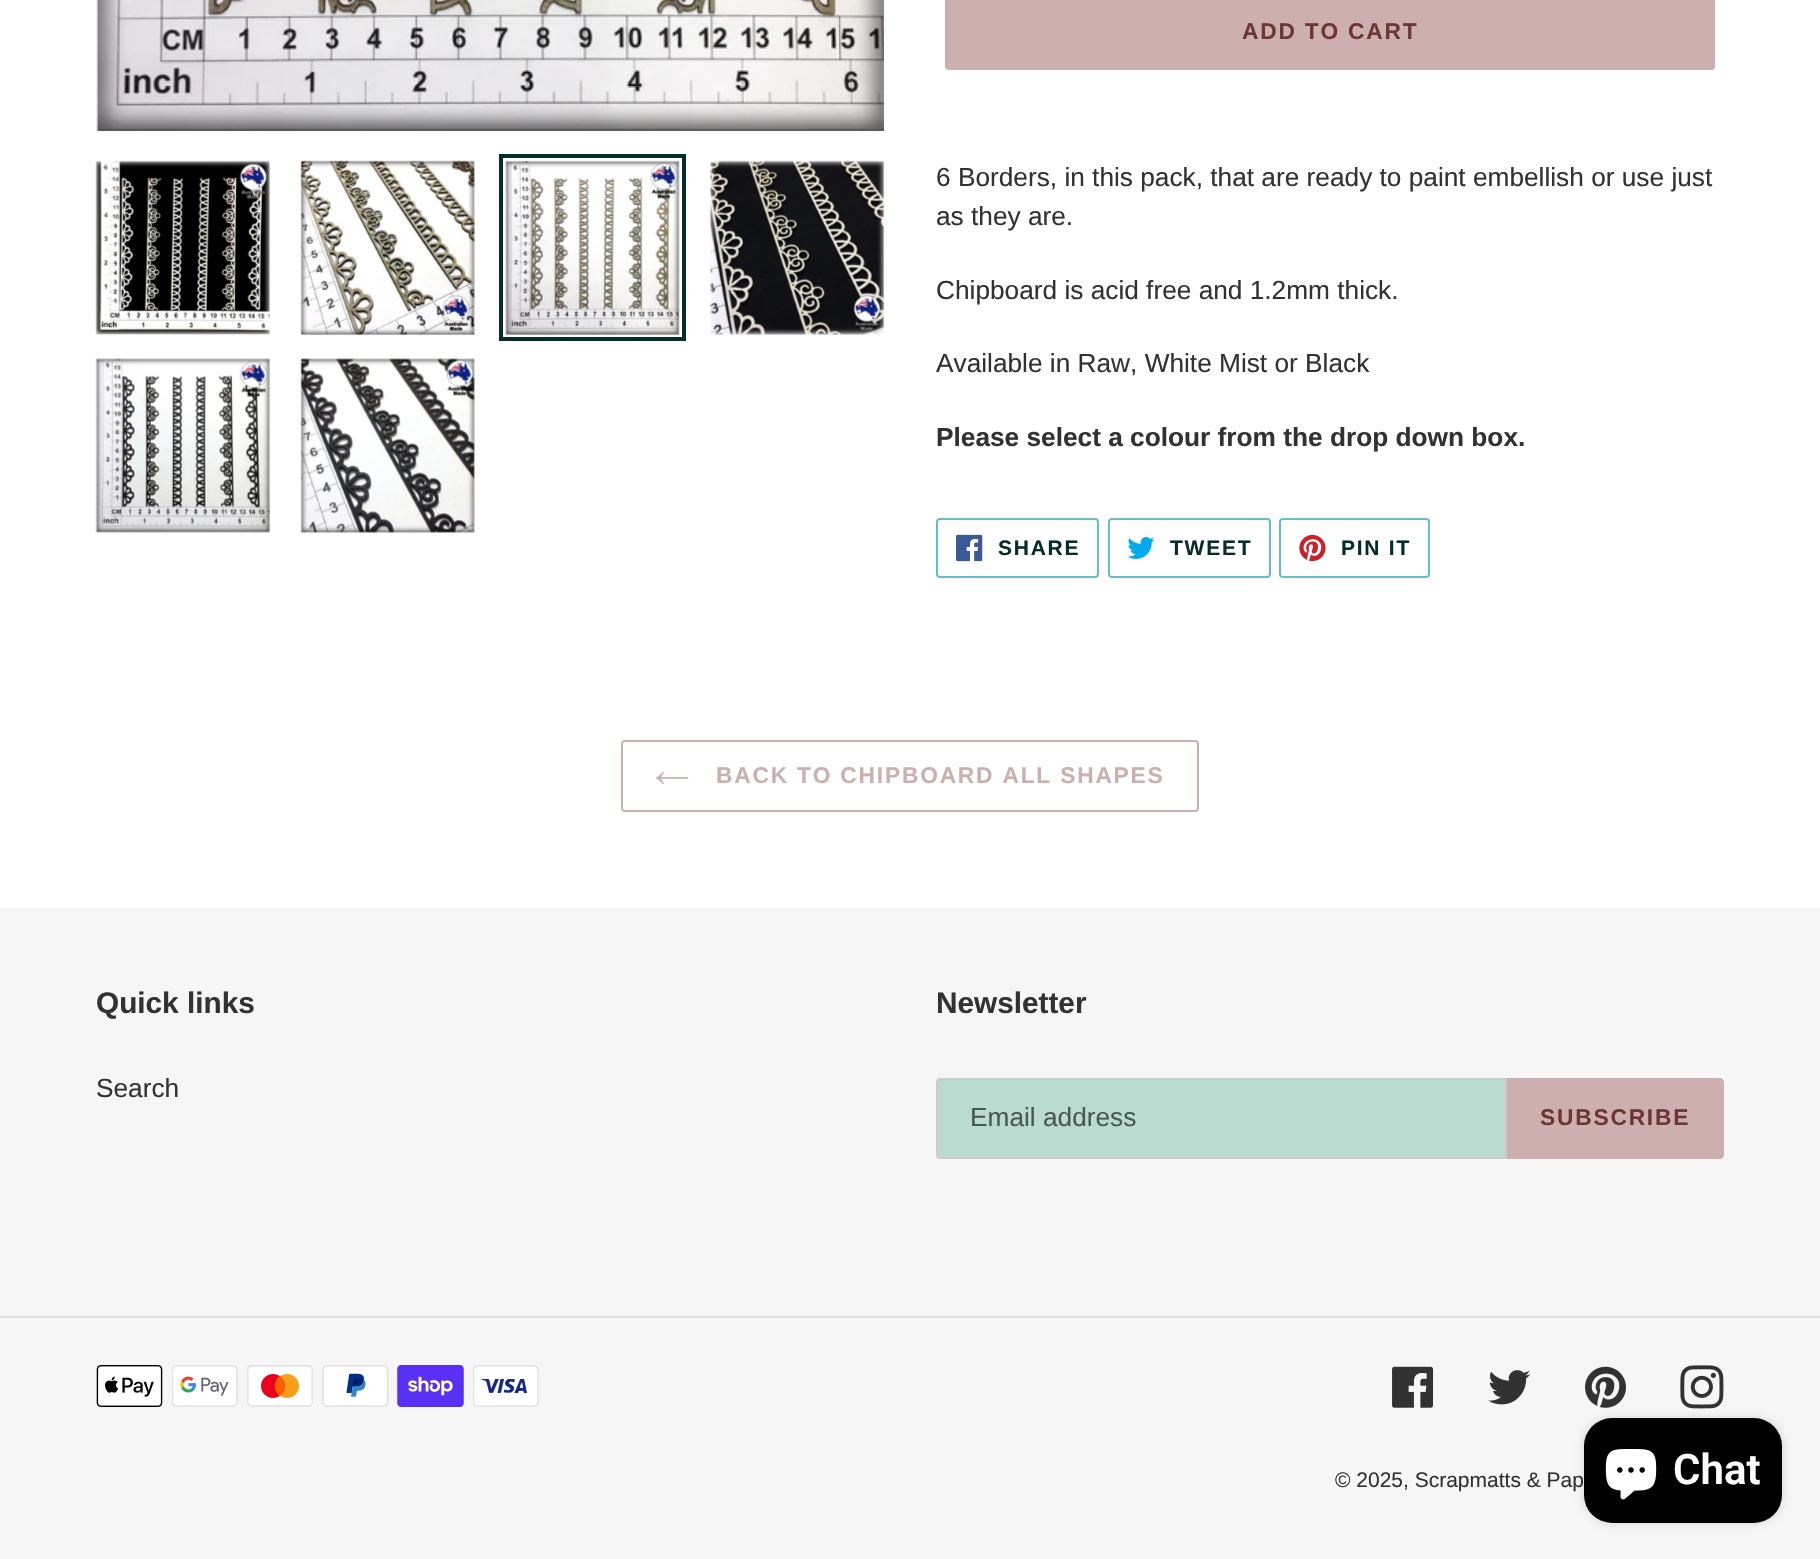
void draw(SkCanvas* canvas) {
    SkPaint paint;
    paint.setAntiAlias(true);
    auto spacedText = [&](const char* s, float x, float y, const SkFont& font, const SkPaint& ink, float letter, float word) {
        std::vector<SkGlyphID> glyphs(font.countText(s, strlen(s), SkTextEncoding::kUTF8));
        std::vector<float> xs(glyphs.size());
        font.textToGlyphs(s, strlen(s), SkTextEncoding::kUTF8, glyphs);
        font.getXPos(glyphs, xs, x);
        float extra = 0;
        for (size_t i = 0; i < glyphs.size(); i++) {
            xs[i] += extra;
            extra += letter + word * (glyphs[i] == font.unicharToGlyph(' '));
        }
        canvas->drawTextBlob(SkTextBlob::MakeFromPosHGlyphs(glyphs, xs, y, font), 0, 0, ink);
    };
    canvas->clear(0xFFFFFFFF);
    canvas->drawImageRect(SkImages::DeferredFromEncodedData(SkData::MakeFromFileName("img1.png")), SkRect::MakeXYWH(96, 0, 788, 131), SkSamplingOptions());
    canvas->drawImageRect(SkImages::DeferredFromEncodedData(SkData::MakeFromFileName("img2.png")), SkRect::MakeXYWH(95, 160, 175, 175), SkSamplingOptions());
    canvas->drawImageRect(SkImages::DeferredFromEncodedData(SkData::MakeFromFileName("img3.png")), SkRect::MakeXYWH(300, 160, 175, 175), SkSamplingOptions());
    paint.setStyle(SkPaint::kStroke_Style);
    paint.setStrokeWidth(4);
    paint.setColor(0xFF052E2B);
    canvas->drawRect(SkRect::MakeXYWH(501, 156, 183, 183), paint);
    canvas->drawImageRect(SkImages::DeferredFromEncodedData(SkData::MakeFromFileName("img4.png")), SkRect::MakeXYWH(505, 160, 175, 175), SkSamplingOptions());
    canvas->drawImageRect(SkImages::DeferredFromEncodedData(SkData::MakeFromFileName("img5.png")), SkRect::MakeXYWH(709, 160, 175, 175), SkSamplingOptions());
    canvas->drawImageRect(SkImages::DeferredFromEncodedData(SkData::MakeFromFileName("img6.png")), SkRect::MakeXYWH(95, 358, 175, 175), SkSamplingOptions());
    canvas->drawImageRect(SkImages::DeferredFromEncodedData(SkData::MakeFromFileName("img7.png")), SkRect::MakeXYWH(300, 358, 175, 175), SkSamplingOptions());
    paint.setStyle(SkPaint::kFill_Style);
    paint.setColor(0xFFCCAFAF);
    canvas->drawRoundRect(SkRect::MakeXYWH(945, -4, 770, 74), 4, 4, paint);
    SkFont font1(fontMgr->matchFamilyStyle("Liberation Sans", SkFontStyle::Bold()), 22.75f);
    font1.setSubpixel(true);
    paint.setColor(0xFF6F3636);
    spacedText("ADD TO CART", 1242, 39, font1, paint, 1.8f, 0);
    SkFont font2(fontMgr->matchFamilyStyle("Liberation Sans", SkFontStyle::Normal()), 26.25f);
    font2.setSubpixel(true);
    paint.setColor(0xFF333232);
    canvas->drawString("6 Borders, in this pack, that are ready to paint embellish or use just", 936, 186, font2, paint);
    canvas->drawString("as they are.", 936, 225, font2, paint);
    canvas->drawString("Chipboard is acid free and 1.2mm thick.", 936, 299, font2, paint);
    canvas->drawString("Available in Raw, White Mist or Black", 936, 372, font2, paint);
    SkFont font3(fontMgr->matchFamilyStyle("Liberation Sans", SkFontStyle::Bold()), 26.25f);
    font3.setSubpixel(true);
    canvas->drawString("Please select a colour from the drop down box.", 936, 446, font3, paint);
    paint.setStyle(SkPaint::kStroke_Style);
    paint.setStrokeWidth(2);
    paint.setColor(0xFF63BFC7);
    canvas->drawRoundRect(SkRect::MakeXYWH(937, 519, 161, 58), 3, 3, paint);
    canvas->drawImageRect(SkImages::DeferredFromEncodedData(SkData::MakeFromFileName("img8.png")), SkRect::MakeXYWH(956, 534, 27, 28), SkSamplingOptions());
    SkFont font4(fontMgr->matchFamilyStyle("Liberation Sans", SkFontStyle::Bold()), 21);
    font4.setSubpixel(true);
    paint.setStyle(SkPaint::kFill_Style);
    paint.setColor(0xFF052E2B);
    spacedText("SHARE", 998, 555, font4, paint, 1.75f, 0);
    paint.setStyle(SkPaint::kStroke_Style);
    paint.setColor(0xFF63BFC7);
    canvas->drawRoundRect(SkRect::MakeXYWH(1109, 519, 161, 58), 3, 3, paint);
    canvas->drawImageRect(SkImages::DeferredFromEncodedData(SkData::MakeFromFileName("img9.png")), SkRect::MakeXYWH(1127, 537, 28, 22), SkSamplingOptions());
    paint.setStyle(SkPaint::kFill_Style);
    paint.setColor(0xFF052E2B);
    spacedText("TWEET", 1170, 555, font4, paint, 1.75f, 0);
    paint.setStyle(SkPaint::kStroke_Style);
    paint.setColor(0xFF63BFC7);
    canvas->drawRoundRect(SkRect::MakeXYWH(1280, 519, 149, 58), 3, 3, paint);
    canvas->drawImageRect(SkImages::DeferredFromEncodedData(SkData::MakeFromFileName("img10.png")), SkRect::MakeXYWH(1299, 534, 27, 28), SkSamplingOptions());
    paint.setStyle(SkPaint::kFill_Style);
    paint.setColor(0xFF052E2B);
    spacedText("PIN IT", 1341, 555, font4, paint, 1.75f, 0);
    paint.setStyle(SkPaint::kStroke_Style);
    paint.setColor(0xFFCCAFAF);
    canvas->drawRoundRect(SkRect::MakeXYWH(622, 741, 576, 70), 3, 3, paint);
    canvas->drawImageRect(SkImages::DeferredFromEncodedData(SkData::MakeFromFileName("img11.png")), SkRect::MakeXYWH(655, 771, 34, 14), SkSamplingOptions());
    paint.setStyle(SkPaint::kFill_Style);
    spacedText("BACK TO CHIPBOARD ALL SHAPES", 716, 783, font1, paint, 1.8f, 0);
    paint.setColor(0xFFF6F6F6);
    canvas->drawRect(SkRect::MakeXYWH(0, 908, 1820, 651), paint);
    SkFont font5(fontMgr->matchFamilyStyle("Liberation Sans", SkFontStyle::Bold()), 29.75f);
    font5.setSubpixel(true);
    paint.setColor(0xFF333232);
    canvas->drawString("Quick links", 96, 1013, font5, paint);
    canvas->drawString("Search", 96, 1097, font2, paint);
    canvas->drawString("Newsletter", 936, 1013, font5, paint);
    paint.setColor(0xFFBADBCF);
    canvas->drawPath(SkPathBuilder().moveTo(940, 1079).lineTo(1506, 1079).lineTo(1506, 1158).lineTo(940, 1158).cubicTo(938.5f, 1158, 937, 1156.5f, 937, 1155).lineTo(937, 1082).cubicTo(937, 1080.5f, 938.5f, 1079, 940, 1079).close().detach(), paint);
    paint.setStyle(SkPaint::kStroke_Style);
    paint.setColor(0xFFCCCCCC);
    canvas->drawPath(SkPathBuilder().moveTo(940, 1079).lineTo(1506, 1079).lineTo(1506, 1158).lineTo(940, 1158).cubicTo(938.5f, 1158, 937, 1156.5f, 937, 1155).lineTo(937, 1082).cubicTo(937, 1080.5f, 938.5f, 1079, 940, 1079).close().detach(), paint);
    paint.setStyle(SkPaint::kFill_Style);
    paint.setColor(0xFF4A5853);
    canvas->drawString("Email address", 970, 1126, font2, paint);
    paint.setColor(0xFFCCAFAF);
    canvas->drawPath(SkPathBuilder().moveTo(1507, 1078).lineTo(1720, 1078).cubicTo(1722, 1078, 1724, 1080, 1724, 1082).lineTo(1724, 1155).cubicTo(1724, 1157, 1722, 1159, 1720, 1159).lineTo(1507, 1159).close().detach(), paint);
    paint.setColor(0xFF6F3636);
    spacedText("SUBSCRIBE", 1540, 1125, font1, paint, 1.8f, 0);
    paint.setColor(0xFFDDDDDD);
    canvas->drawRect(SkRect::MakeXYWH(0, 1316, 1820, 2), paint);
    canvas->drawImageRect(SkImages::DeferredFromEncodedData(SkData::MakeFromFileName("img12.png")), SkRect::MakeXYWH(96, 1365, 67, 42), SkSamplingOptions());
    canvas->drawImageRect(SkImages::DeferredFromEncodedData(SkData::MakeFromFileName("img13.png")), SkRect::MakeXYWH(172, 1365, 66, 42), SkSamplingOptions());
    canvas->drawImageRect(SkImages::DeferredFromEncodedData(SkData::MakeFromFileName("img14.png")), SkRect::MakeXYWH(247, 1365, 66, 42), SkSamplingOptions());
    canvas->drawImageRect(SkImages::DeferredFromEncodedData(SkData::MakeFromFileName("img15.png")), SkRect::MakeXYWH(322, 1365, 67, 42), SkSamplingOptions());
    canvas->drawImageRect(SkImages::DeferredFromEncodedData(SkData::MakeFromFileName("img16.png")), SkRect::MakeXYWH(397, 1365, 67, 42), SkSamplingOptions());
    canvas->drawImageRect(SkImages::DeferredFromEncodedData(SkData::MakeFromFileName("img17.png")), SkRect::MakeXYWH(473, 1365, 66, 42), SkSamplingOptions());
    canvas->drawImageRect(SkImages::DeferredFromEncodedData(SkData::MakeFromFileName("img18.png")), SkRect::MakeXYWH(1392, 1366, 42, 42), SkSamplingOptions());
    canvas->drawImageRect(SkImages::DeferredFromEncodedData(SkData::MakeFromFileName("img19.png")), SkRect::MakeXYWH(1488, 1370, 43, 35), SkSamplingOptions());
    canvas->drawImageRect(SkImages::DeferredFromEncodedData(SkData::MakeFromFileName("img20.png")), SkRect::MakeXYWH(1585, 1366, 41, 42), SkSamplingOptions());
    canvas->drawImageRect(SkImages::DeferredFromEncodedData(SkData::MakeFromFileName("img21.png")), SkRect::MakeXYWH(1680, 1365, 44, 44), SkSamplingOptions());
    SkFont font6(fontMgr->matchFamilyStyle("Liberation Sans", SkFontStyle::Normal()), 21);
    font6.setSubpixel(true);
    paint.setColor(0xFF333232);
    canvas->drawString("© 2025, Scrapmatts & Pap", 1335, 1487, font6, paint);
    paint.setColor(0x26000000);
    paint.setMaskFilter(SkMaskFilter::MakeBlur(kNormal_SkBlurStyle, 4.5f));
    canvas->drawRoundRect(SkRect::MakeXYWH(1584, 1418, 198, 105), 28, 28, paint);
    paint.setMaskFilter(nullptr);
    paint.setColor(0xFF000000);
    canvas->drawRoundRect(SkRect::MakeXYWH(1584, 1418, 198, 105), 28, 28, paint);
    canvas->drawImageRect(SkImages::DeferredFromEncodedData(SkData::MakeFromFileName("img22.png")), SkRect::MakeXYWH(1605, 1449, 52, 51), SkSamplingOptions());
    SkFont font7(fontMgr->matchFamilyStyle("Roboto", SkFontStyle(600, SkFontStyle::kNormal_Width, SkFontStyle::kUpright_Slant)), 42);
    font7.setSubpixel(true);
    paint.setColor(0xFFFFFFFF);
    canvas->drawString("Chat", 1673, 1484, font7, paint);
}
